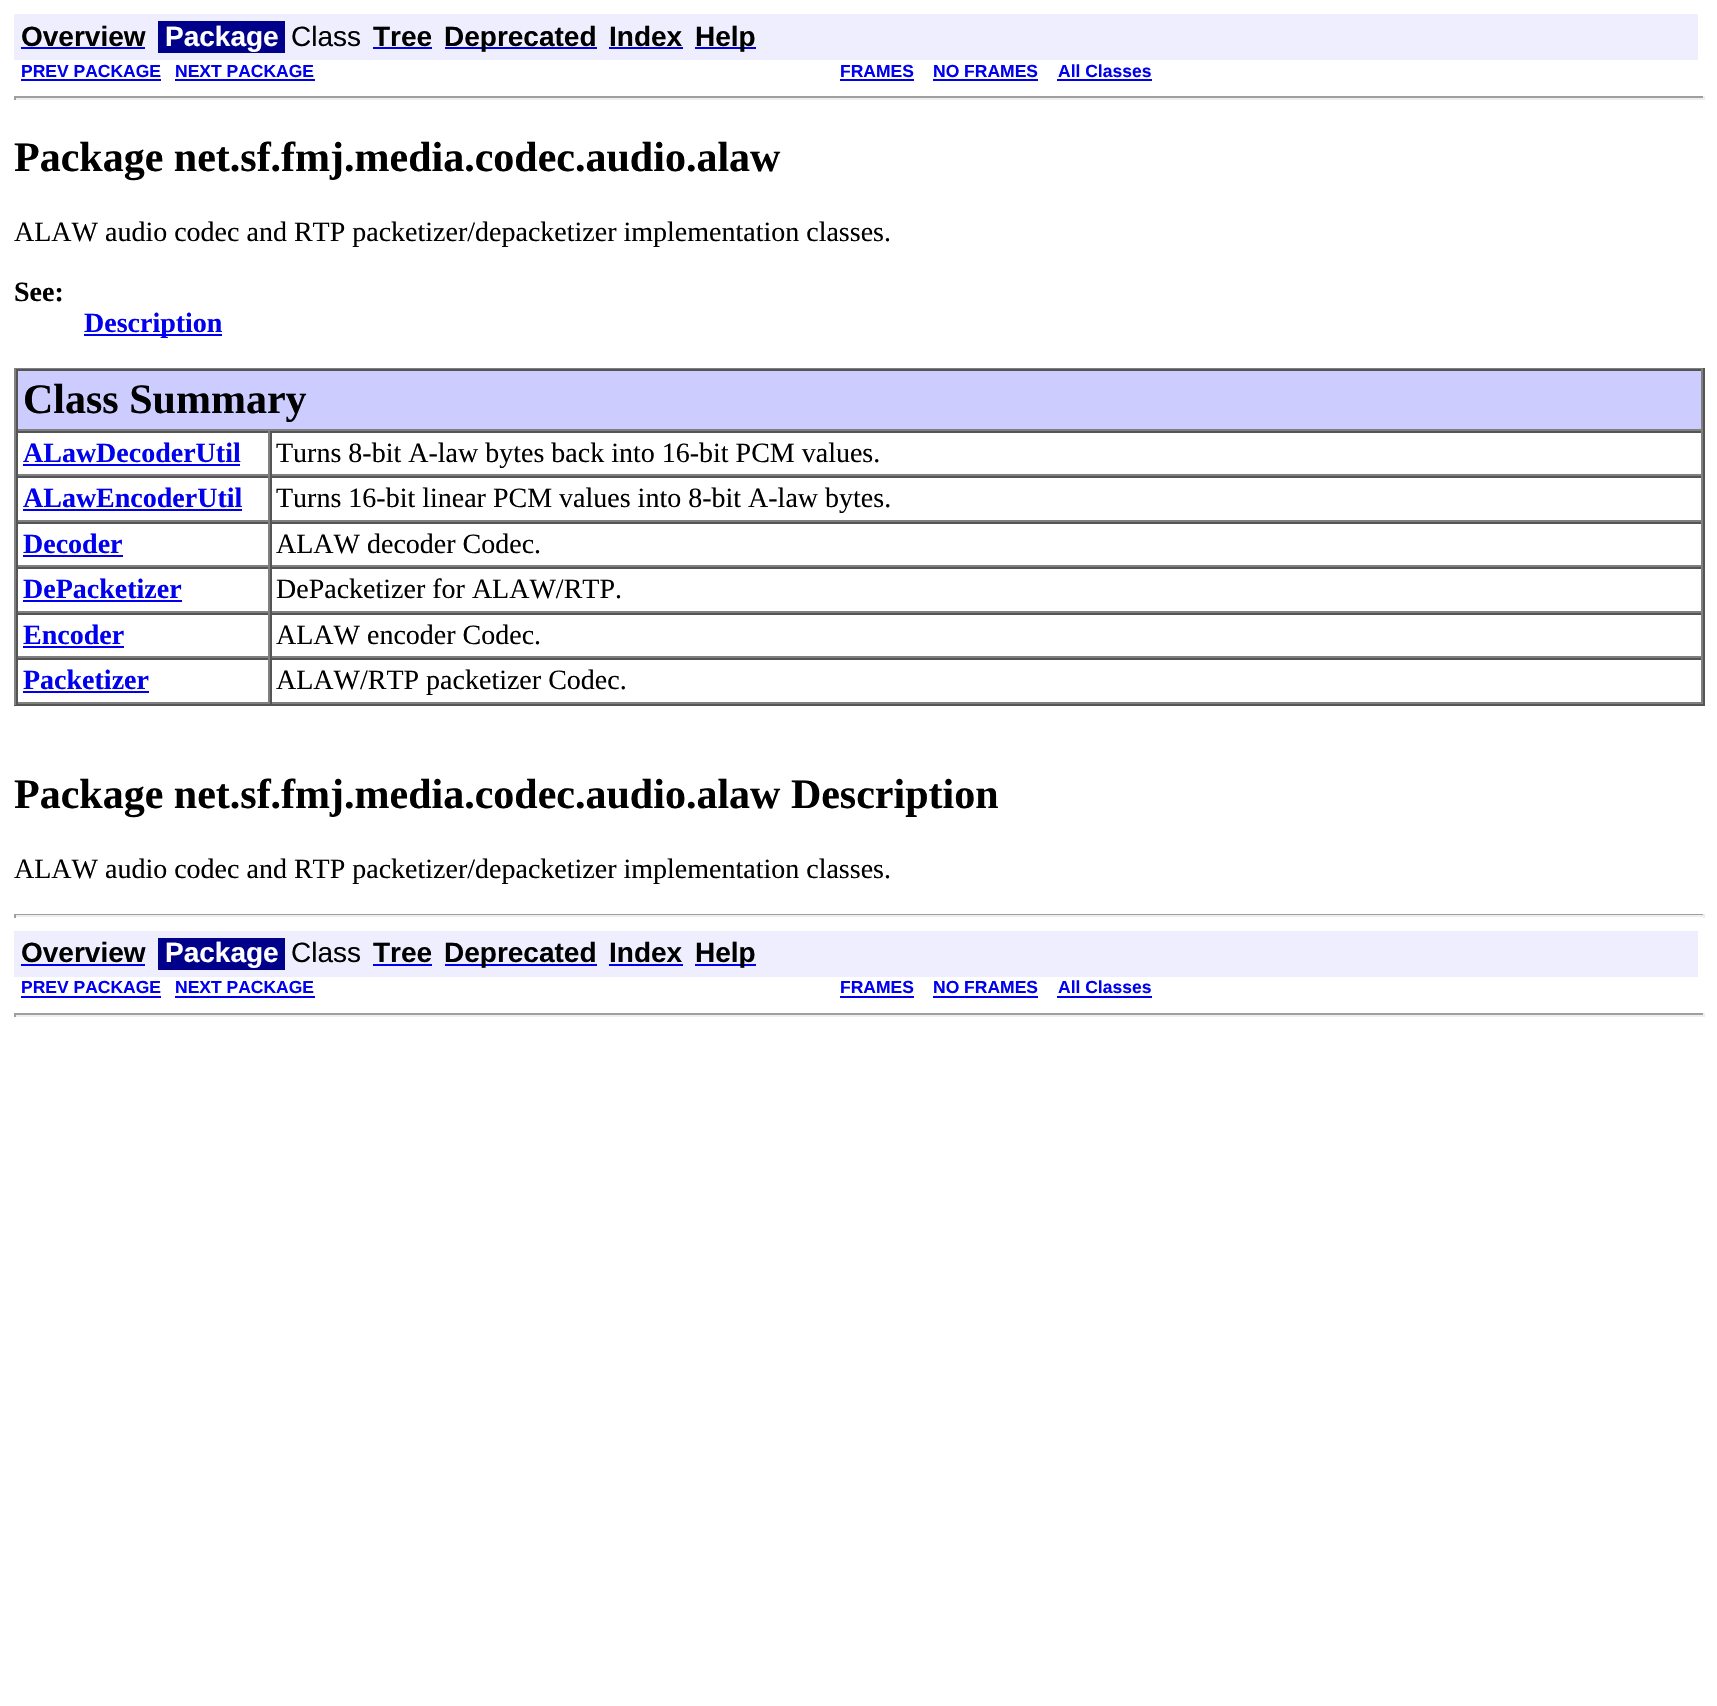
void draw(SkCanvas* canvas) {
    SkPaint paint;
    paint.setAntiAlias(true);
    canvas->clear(0xFFFFFFFF);
    paint.setColor(0xFFEEEEFF);
    canvas->drawRect(SkRect::MakeXYWH(14, 14, 1684, 46), paint);
    SkFont font1(fontMgr->matchFamilyStyle("Liberation Sans", SkFontStyle::Bold()), 28);
    font1.setSubpixel(true);
    paint.setColor(0xFF000000);
    canvas->drawString("Overview", 21, 46, font1, paint);
    paint.setColor(0xFF0000EE);
    canvas->drawRect(SkRect::MakeXYWH(21, 47, 124, 2), paint);
    paint.setColor(0xFF00008B);
    canvas->drawRect(SkRect::MakeXYWH(158, 21, 127, 32), paint);
    paint.setColor(0xFFFFFFFF);
    canvas->drawString("Package", 165, 46, font1, paint);
    SkFont font2(fontMgr->matchFamilyStyle("Liberation Sans", SkFontStyle::Normal()), 28);
    font2.setSubpixel(true);
    paint.setColor(0xFF000000);
    canvas->drawString("Class", 291, 46, font2, paint);
    canvas->drawString("Tree", 373, 46, font1, paint);
    paint.setColor(0xFF0000EE);
    canvas->drawRect(SkRect::MakeXYWH(373, 47, 59, 2), paint);
    canvas->drawRect(SkRect::MakeXYWH(445, 47, 152, 2), paint);
    paint.setColor(0xFF000000);
    canvas->drawString("Deprecated", 444, 46, font1, paint);
    canvas->drawString("Index", 609, 46, font1, paint);
    paint.setColor(0xFF0000EE);
    canvas->drawRect(SkRect::MakeXYWH(609, 47, 74, 2), paint);
    canvas->drawRect(SkRect::MakeXYWH(695, 47, 61, 2), paint);
    paint.setColor(0xFF000000);
    canvas->drawString("Help", 695, 46, font1, paint);
    SkFont font3(fontMgr->matchFamilyStyle("Liberation Sans", SkFontStyle::Bold()), 17.5f);
    font3.setSubpixel(true);
    paint.setColor(0xFF0000EE);
    canvas->drawString("PREV PACKAGE", 21, 77, font3, paint);
    canvas->drawRect(SkRect::MakeXYWH(21, 79, 140, 2), paint);
    canvas->drawString("NEXT PACKAGE", 175, 77, font3, paint);
    canvas->drawRect(SkRect::MakeXYWH(175, 79, 140, 2), paint);
    canvas->drawString("FRAMES", 840, 77, font3, paint);
    canvas->drawRect(SkRect::MakeXYWH(840, 79, 74, 2), paint);
    canvas->drawString("NO FRAMES", 933, 77, font3, paint);
    canvas->drawRect(SkRect::MakeXYWH(933, 79, 105, 2), paint);
    canvas->drawString("All Classes", 1058, 77, font3, paint);
    canvas->drawRect(SkRect::MakeXYWH(1057, 79, 95, 2), paint);
    paint.setColor(0xFF9F9F9F);
    canvas->drawRect(SkRect::MakeXYWH(14, 96, 1691, 2), paint);
    paint.setColor(0xFFEEEEEE);
    canvas->drawRect(SkRect::MakeXYWH(1703, 96, 2, 4), paint);
    canvas->drawRect(SkRect::MakeXYWH(14, 98, 1691, 2), paint);
    paint.setColor(0xFF9F9F9F);
    canvas->drawRect(SkRect::MakeXYWH(14, 96, 2, 4), paint);
    SkFont font4(fontMgr->matchFamilyStyle("Liberation Serif", SkFontStyle::Bold()), 42);
    font4.setSubpixel(true);
    paint.setColor(0xFF000000);
    canvas->drawString("Package net.sf.fmj.media.codec.audio.alaw", 14, 171, font4, paint);
    SkFont font5(fontMgr->matchFamilyStyle("Liberation Serif", SkFontStyle::Normal()), 28);
    font5.setSubpixel(true);
    canvas->drawString("ALAW audio codec and RTP packetizer/depacketizer implementation classes.", 14, 241, font5, paint);
    SkFont font6(fontMgr->matchFamilyStyle("Liberation Serif", SkFontStyle::Bold()), 28);
    font6.setSubpixel(true);
    canvas->drawString("See:", 14, 301, font6, paint);
    paint.setColor(0xFF0000EE);
    canvas->drawRect(SkRect::MakeXYWH(84, 334, 138, 2), paint);
    canvas->drawString("Description", 84, 332, font6, paint);
    paint.setColor(0xFF808080);
    canvas->drawRect(SkRect::MakeXYWH(14, 368, 1691, 1), paint);
    paint.setColor(0xFF555555);
    canvas->drawRect(SkRect::MakeXYWH(1703, 368, 2, 337), paint);
    canvas->drawRect(SkRect::MakeXYWH(14, 704, 1691, 2), paint);
    paint.setColor(0xFF808080);
    canvas->drawRect(SkRect::MakeXYWH(14, 368, 2, 337), paint);
    paint.setColor(0xFFCCCCFF);
    canvas->drawRect(SkRect::MakeXYWH(18, 371, 1683, 58), paint);
    paint.setColor(0xFF555555);
    canvas->drawRect(SkRect::MakeXYWH(16, 369, 1687, 2), paint);
    paint.setColor(0xFF808080);
    canvas->drawRect(SkRect::MakeXYWH(1701, 369, 2, 62), paint);
    canvas->drawRect(SkRect::MakeXYWH(16, 429, 1687, 2), paint);
    paint.setColor(0xFF555555);
    canvas->drawRect(SkRect::MakeXYWH(16, 369, 2, 62), paint);
    paint.setColor(0xFF000000);
    canvas->drawString("Class Summary", 23, 413, font4, paint);
    paint.setColor(0xFF555555);
    canvas->drawRect(SkRect::MakeXYWH(16, 431, 1687, 2), paint);
    paint.setColor(0xFF808080);
    canvas->drawRect(SkRect::MakeXYWH(268, 431, 2, 45), paint);
    canvas->drawRect(SkRect::MakeXYWH(16, 474, 254, 2), paint);
    paint.setColor(0xFF555555);
    canvas->drawRect(SkRect::MakeXYWH(16, 431, 2, 45), paint);
    paint.setColor(0xFF0000EE);
    canvas->drawString("ALawDecoderUtil", 23, 462, font6, paint);
    canvas->drawRect(SkRect::MakeXYWH(23, 464, 217, 2), paint);
    paint.setColor(0xFF808080);
    canvas->drawRect(SkRect::MakeXYWH(1701, 431, 2, 45), paint);
    canvas->drawRect(SkRect::MakeXYWH(270, 474, 1433, 2), paint);
    paint.setColor(0xFF555555);
    canvas->drawRect(SkRect::MakeXYWH(270, 431, 2, 45), paint);
    paint.setColor(0xFF000000);
    canvas->drawString("Turns 8-bit A-law bytes back into 16-bit PCM values.", 276, 462, font5, paint);
    paint.setColor(0xFF555555);
    canvas->drawRect(SkRect::MakeXYWH(16, 476, 1687, 2), paint);
    paint.setColor(0xFF808080);
    canvas->drawRect(SkRect::MakeXYWH(268, 476, 2, 46), paint);
    canvas->drawRect(SkRect::MakeXYWH(16, 520, 254, 2), paint);
    paint.setColor(0xFF555555);
    canvas->drawRect(SkRect::MakeXYWH(16, 476, 2, 46), paint);
    paint.setColor(0xFF0000EE);
    canvas->drawString("ALawEncoderUtil", 23, 507, font6, paint);
    canvas->drawRect(SkRect::MakeXYWH(23, 509, 219, 2), paint);
    paint.setColor(0xFF808080);
    canvas->drawRect(SkRect::MakeXYWH(1701, 476, 2, 46), paint);
    canvas->drawRect(SkRect::MakeXYWH(270, 520, 1433, 2), paint);
    paint.setColor(0xFF555555);
    canvas->drawRect(SkRect::MakeXYWH(270, 476, 2, 46), paint);
    paint.setColor(0xFF000000);
    canvas->drawString("Turns 16-bit linear PCM values into 8-bit A-law bytes.", 276, 507, font5, paint);
    paint.setColor(0xFF555555);
    canvas->drawRect(SkRect::MakeXYWH(16, 522, 1687, 2), paint);
    paint.setColor(0xFF808080);
    canvas->drawRect(SkRect::MakeXYWH(268, 522, 2, 45), paint);
    canvas->drawRect(SkRect::MakeXYWH(16, 565, 254, 2), paint);
    paint.setColor(0xFF555555);
    canvas->drawRect(SkRect::MakeXYWH(16, 522, 2, 45), paint);
    paint.setColor(0xFF0000EE);
    canvas->drawString("Decoder", 23, 553, font6, paint);
    canvas->drawRect(SkRect::MakeXYWH(23, 555, 100, 2), paint);
    paint.setColor(0xFF808080);
    canvas->drawRect(SkRect::MakeXYWH(1701, 522, 2, 45), paint);
    canvas->drawRect(SkRect::MakeXYWH(270, 565, 1433, 2), paint);
    paint.setColor(0xFF555555);
    canvas->drawRect(SkRect::MakeXYWH(270, 522, 2, 45), paint);
    paint.setColor(0xFF000000);
    canvas->drawString("ALAW decoder Codec.", 276, 553, font5, paint);
    paint.setColor(0xFF555555);
    canvas->drawRect(SkRect::MakeXYWH(16, 567, 1687, 2), paint);
    paint.setColor(0xFF808080);
    canvas->drawRect(SkRect::MakeXYWH(268, 567, 2, 46), paint);
    canvas->drawRect(SkRect::MakeXYWH(16, 611, 254, 2), paint);
    paint.setColor(0xFF555555);
    canvas->drawRect(SkRect::MakeXYWH(16, 567, 2, 46), paint);
    paint.setColor(0xFF0000EE);
    canvas->drawString("DePacketizer", 23, 598, font6, paint);
    canvas->drawRect(SkRect::MakeXYWH(23, 600, 159, 2), paint);
    paint.setColor(0xFF808080);
    canvas->drawRect(SkRect::MakeXYWH(1701, 567, 2, 46), paint);
    canvas->drawRect(SkRect::MakeXYWH(270, 611, 1433, 2), paint);
    paint.setColor(0xFF555555);
    canvas->drawRect(SkRect::MakeXYWH(270, 567, 2, 46), paint);
    paint.setColor(0xFF000000);
    canvas->drawString("DePacketizer for ALAW/RTP.", 276, 598, font5, paint);
    paint.setColor(0xFF555555);
    canvas->drawRect(SkRect::MakeXYWH(16, 613, 1687, 2), paint);
    paint.setColor(0xFF808080);
    canvas->drawRect(SkRect::MakeXYWH(268, 613, 2, 45), paint);
    canvas->drawRect(SkRect::MakeXYWH(16, 656, 254, 2), paint);
    paint.setColor(0xFF555555);
    canvas->drawRect(SkRect::MakeXYWH(16, 613, 2, 45), paint);
    paint.setColor(0xFF0000EE);
    canvas->drawString("Encoder", 23, 644, font6, paint);
    canvas->drawRect(SkRect::MakeXYWH(23, 646, 101, 2), paint);
    paint.setColor(0xFF808080);
    canvas->drawRect(SkRect::MakeXYWH(1701, 613, 2, 45), paint);
    canvas->drawRect(SkRect::MakeXYWH(270, 656, 1433, 2), paint);
    paint.setColor(0xFF555555);
    canvas->drawRect(SkRect::MakeXYWH(270, 613, 2, 45), paint);
    paint.setColor(0xFF000000);
    canvas->drawString("ALAW encoder Codec.", 276, 644, font5, paint);
    paint.setColor(0xFF555555);
    canvas->drawRect(SkRect::MakeXYWH(16, 658, 1687, 2), paint);
    paint.setColor(0xFF808080);
    canvas->drawRect(SkRect::MakeXYWH(268, 658, 2, 46), paint);
    canvas->drawRect(SkRect::MakeXYWH(16, 702, 254, 2), paint);
    paint.setColor(0xFF555555);
    canvas->drawRect(SkRect::MakeXYWH(16, 658, 2, 46), paint);
    paint.setColor(0xFF0000EE);
    canvas->drawString("Packetizer", 23, 689, font6, paint);
    canvas->drawRect(SkRect::MakeXYWH(23, 691, 126, 2), paint);
    paint.setColor(0xFF808080);
    canvas->drawRect(SkRect::MakeXYWH(1701, 658, 2, 46), paint);
    canvas->drawRect(SkRect::MakeXYWH(270, 702, 1433, 2), paint);
    paint.setColor(0xFF555555);
    canvas->drawRect(SkRect::MakeXYWH(270, 658, 2, 46), paint);
    paint.setColor(0xFF000000);
    canvas->drawString("ALAW/RTP packetizer Codec.", 276, 689, font5, paint);
    canvas->drawString("Package net.sf.fmj.media.codec.audio.alaw Description", 14, 808, font4, paint);
    canvas->drawString("ALAW audio codec and RTP packetizer/depacketizer implementation classes.", 14, 878, font5, paint);
    paint.setColor(0xFF9F9F9F);
    canvas->drawRect(SkRect::MakeXYWH(14, 914, 1691, 1), paint);
    paint.setColor(0xFFEEEEEE);
    canvas->drawRect(SkRect::MakeXYWH(1703, 914, 2, 4), paint);
    canvas->drawRect(SkRect::MakeXYWH(14, 915, 1691, 2), paint);
    paint.setColor(0xFF9F9F9F);
    canvas->drawRect(SkRect::MakeXYWH(14, 914, 2, 4), paint);
    paint.setColor(0xFFEEEEFF);
    canvas->drawRect(SkRect::MakeXYWH(14, 931, 1684, 46), paint);
    paint.setColor(0xFF000000);
    canvas->drawString("Overview", 21, 962, font1, paint);
    paint.setColor(0xFF0000EE);
    canvas->drawRect(SkRect::MakeXYWH(21, 964, 124, 2), paint);
    paint.setColor(0xFF00008B);
    canvas->drawRect(SkRect::MakeXYWH(158, 938, 127, 32), paint);
    paint.setColor(0xFFFFFFFF);
    canvas->drawString("Package", 165, 962, font1, paint);
    paint.setColor(0xFF000000);
    canvas->drawString("Class", 291, 962, font2, paint);
    canvas->drawString("Tree", 373, 962, font1, paint);
    paint.setColor(0xFF0000EE);
    canvas->drawRect(SkRect::MakeXYWH(373, 964, 59, 2), paint);
    canvas->drawRect(SkRect::MakeXYWH(445, 964, 152, 2), paint);
    paint.setColor(0xFF000000);
    canvas->drawString("Deprecated", 444, 962, font1, paint);
    canvas->drawString("Index", 609, 962, font1, paint);
    paint.setColor(0xFF0000EE);
    canvas->drawRect(SkRect::MakeXYWH(609, 964, 74, 2), paint);
    canvas->drawRect(SkRect::MakeXYWH(695, 964, 61, 2), paint);
    paint.setColor(0xFF000000);
    canvas->drawString("Help", 695, 962, font1, paint);
    paint.setColor(0xFF0000EE);
    canvas->drawString("PREV PACKAGE", 21, 993, font3, paint);
    canvas->drawRect(SkRect::MakeXYWH(21, 996, 140, 2), paint);
    canvas->drawString("NEXT PACKAGE", 175, 993, font3, paint);
    canvas->drawRect(SkRect::MakeXYWH(175, 996, 140, 2), paint);
    canvas->drawString("FRAMES", 840, 993, font3, paint);
    canvas->drawRect(SkRect::MakeXYWH(840, 996, 74, 2), paint);
    canvas->drawString("NO FRAMES", 933, 993, font3, paint);
    canvas->drawRect(SkRect::MakeXYWH(933, 996, 105, 2), paint);
    canvas->drawString("All Classes", 1058, 993, font3, paint);
    canvas->drawRect(SkRect::MakeXYWH(1057, 996, 95, 2), paint);
    paint.setColor(0xFF9F9F9F);
    canvas->drawRect(SkRect::MakeXYWH(14, 1013, 1691, 2), paint);
    paint.setColor(0xFFEEEEEE);
    canvas->drawRect(SkRect::MakeXYWH(1703, 1013, 2, 4), paint);
    canvas->drawRect(SkRect::MakeXYWH(14, 1015, 1691, 2), paint);
    paint.setColor(0xFF9F9F9F);
    canvas->drawRect(SkRect::MakeXYWH(14, 1013, 2, 4), paint);
}
